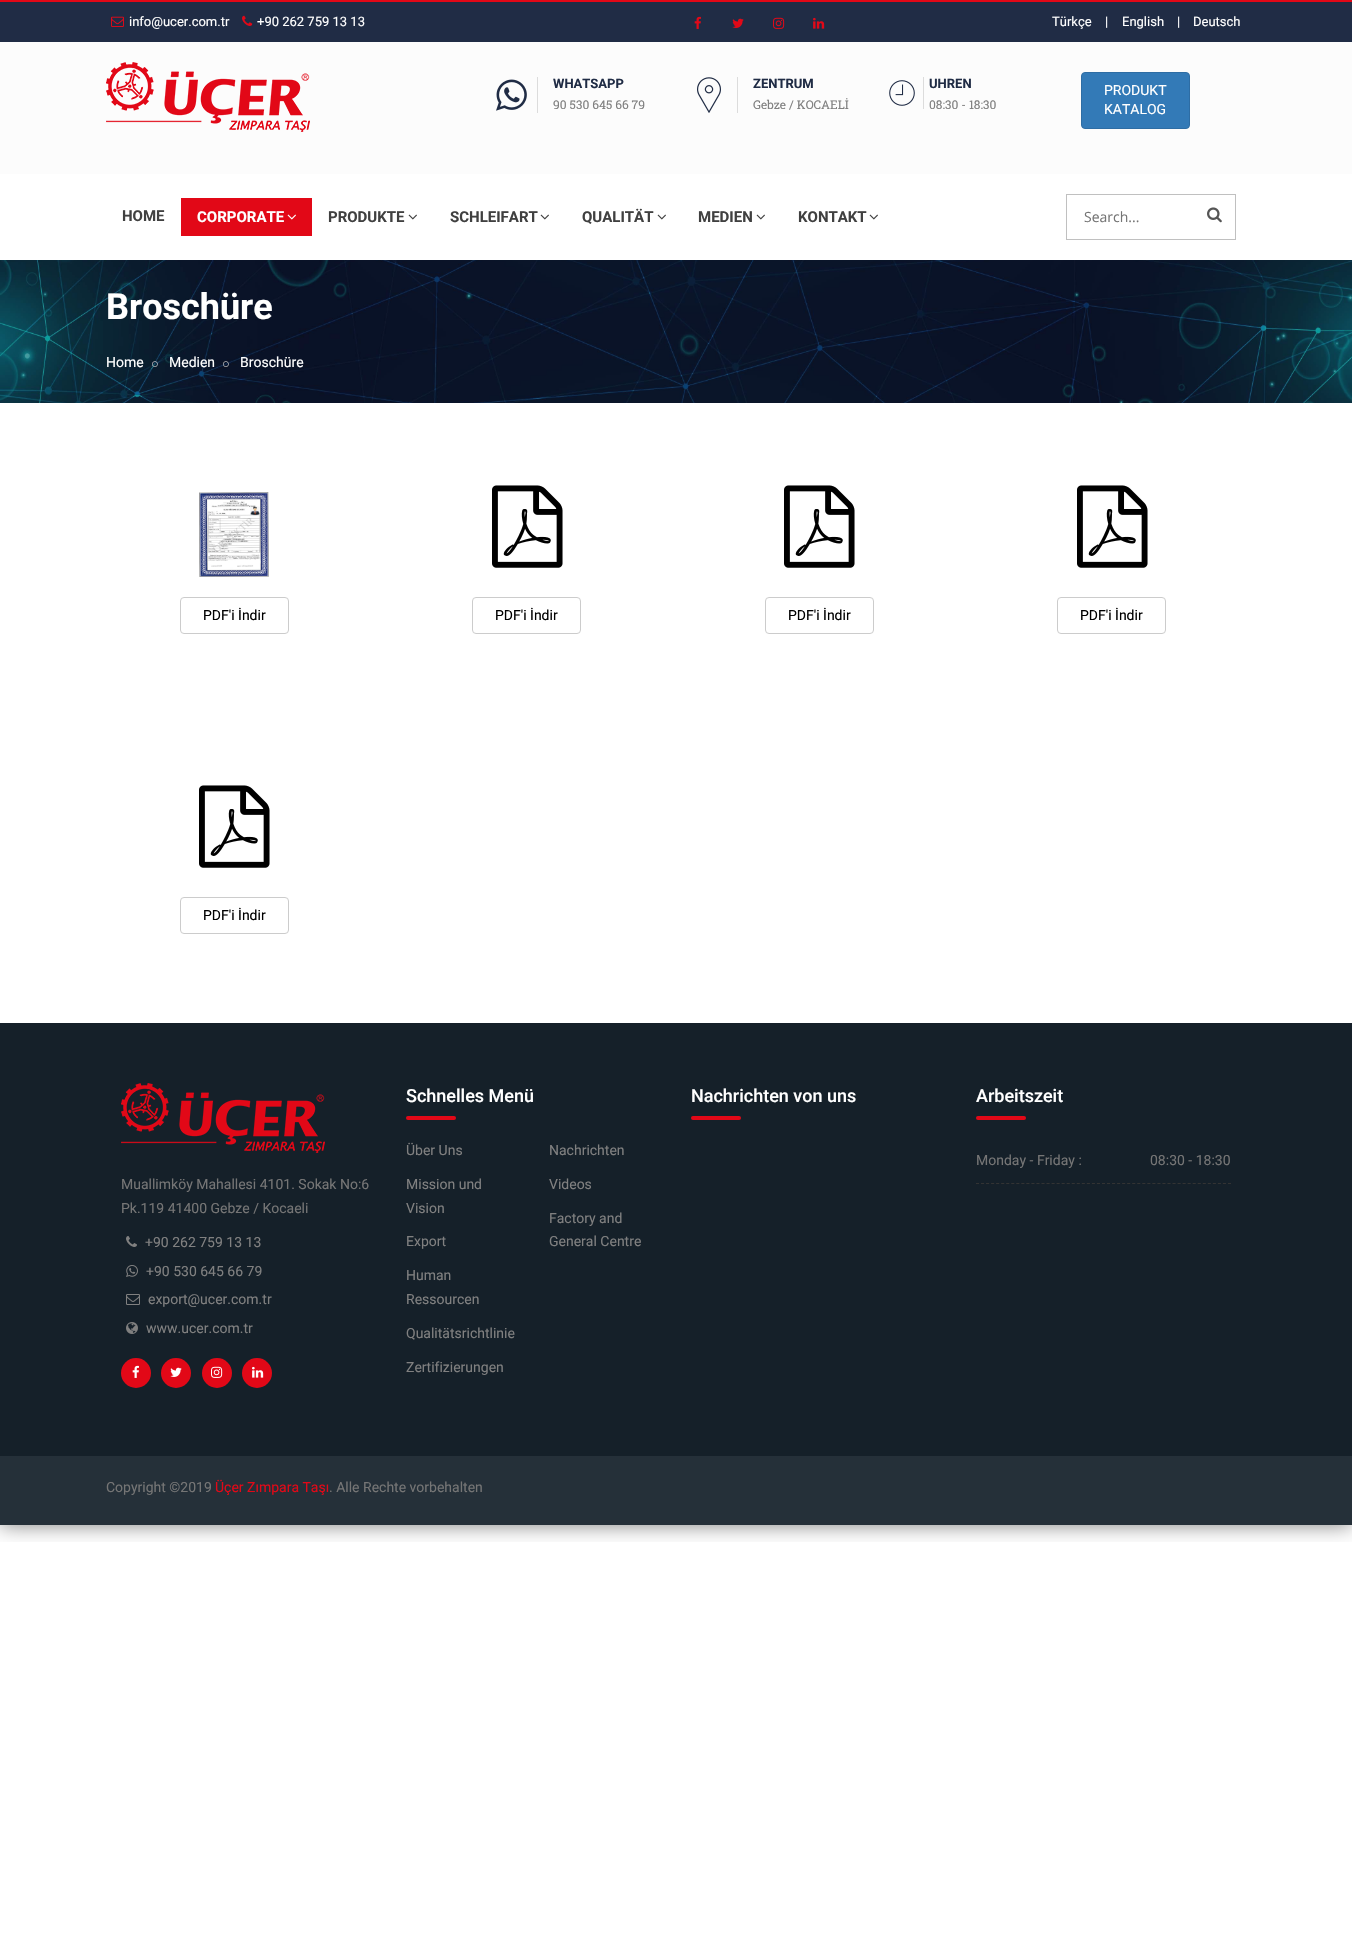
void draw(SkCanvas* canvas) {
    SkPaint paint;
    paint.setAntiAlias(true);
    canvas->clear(0xFFFFFFFF);
    canvas->save();
    canvas->clipRect(SkRect::MakeXYWH(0, 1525, 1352, 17));
    paint.setColor(0x80000000);
    paint.setMaskFilter(SkMaskFilter::MakeBlur(kNormal_SkBlurStyle, 10));
    canvas->drawRect(SkRect::MakeXYWH(0, 0, 1352, 1525), paint);
    paint.setMaskFilter(nullptr);
    canvas->restore();
    paint.setColor(0xFF202C45);
    canvas->drawRect(SkRect::MakeXYWH(0, 2, 1352, 40), paint);
    paint.setColor(0xFFE20817);
    canvas->drawRect(SkRect::MakeXYWH(0, 0, 1352, 2), paint);
    canvas->drawImageRect(SkImages::DeferredFromEncodedData(SkData::MakeFromFileName("img1.png")), SkRect::MakeXYWH(111, 16, 13, 11), SkSamplingOptions());
    SkFont font1(fontMgr->matchFamilyStyle("Roboto", SkFontStyle::Normal()), 13);
    font1.setSubpixel(true);
    paint.setColor(0xFFFFFFFF);
    canvas->drawString("info@ucer.com.tr", 129, 26, font1, paint);
    canvas->drawImageRect(SkImages::DeferredFromEncodedData(SkData::MakeFromFileName("img2.png")), SkRect::MakeXYWH(242, 15, 11, 11), SkSamplingOptions());
    canvas->drawString("+90 262 759 13 13", 257, 26, font1, paint);
    canvas->drawImageRect(SkImages::DeferredFromEncodedData(SkData::MakeFromFileName("img3.png")), SkRect::MakeXYWH(694, 16, 7, 13), SkSamplingOptions());
    canvas->drawImageRect(SkImages::DeferredFromEncodedData(SkData::MakeFromFileName("img4.png")), SkRect::MakeXYWH(732, 18, 12, 10), SkSamplingOptions());
    canvas->drawImageRect(SkImages::DeferredFromEncodedData(SkData::MakeFromFileName("img5.png")), SkRect::MakeXYWH(773, 17, 12, 12), SkSamplingOptions());
    canvas->drawImageRect(SkImages::DeferredFromEncodedData(SkData::MakeFromFileName("img6.png")), SkRect::MakeXYWH(813, 17, 12, 12), SkSamplingOptions());
    canvas->drawString("Türkçe", 1052, 26, font1, paint);
    canvas->drawString("|", 1105, 26, font1, paint);
    canvas->drawString("English", 1122, 26, font1, paint);
    canvas->drawString("|", 1177, 26, font1, paint);
    canvas->drawString("Deutsch", 1193, 26, font1, paint);
    paint.setColor(0xFFFCFCFC);
    canvas->drawRect(SkRect::MakeXYWH(0, 42, 1352, 132), paint);
    canvas->drawImageRect(SkImages::DeferredFromEncodedData(SkData::MakeFromFileName("img7.png")), SkRect::MakeXYWH(106, 62, 204, 70), SkSamplingOptions());
    paint.setColor(0xFFDCDCDC);
    canvas->drawRect(SkRect::MakeXYWH(537, 77, 1, 36), paint);
    canvas->drawImageRect(SkImages::DeferredFromEncodedData(SkData::MakeFromFileName("img8.png")), SkRect::MakeXYWH(496, 79, 31, 32), SkSamplingOptions());
    SkFont font2(fontMgr->matchFamilyStyle("Roboto", SkFontStyle::Bold()), 13);
    font2.setSubpixel(true);
    paint.setColor(0xFF202C45);
    canvas->drawString("WHATSAPP", 553, 88, font2, paint);
    SkFont font3(fontMgr->matchFamilyStyle("Roboto Slab", SkFontStyle::Normal()), 12);
    font3.setSubpixel(true);
    paint.setColor(0xFF808080);
    canvas->drawString("90 530 645 66 79", 553, 109, font3, paint);
    paint.setColor(0xFFDCDCDC);
    canvas->drawRect(SkRect::MakeXYWH(737, 77, 1, 36), paint);
    canvas->drawImageRect(SkImages::DeferredFromEncodedData(SkData::MakeFromFileName("img9.png")), SkRect::MakeXYWH(697, 77, 24, 36), SkSamplingOptions());
    paint.setColor(0xFF202C45);
    canvas->drawString("ZENTRUM", 753, 88, font2, paint);
    paint.setColor(0xFF808080);
    canvas->drawString("Gebze / KOCAELİ", 753, 109, font3, paint);
    paint.setColor(0xFFDCDCDC);
    canvas->drawRect(SkRect::MakeXYWH(923, 77, 1, 32), paint);
    canvas->drawImageRect(SkImages::DeferredFromEncodedData(SkData::MakeFromFileName("img10.png")), SkRect::MakeXYWH(889, 80, 26, 26), SkSamplingOptions());
    paint.setColor(0xFF202C45);
    canvas->drawString("UHREN", 929, 88, font2, paint);
    paint.setColor(0xFF808080);
    canvas->drawString("08:30 - 18:30", 929, 109, font3, paint);
    paint.setColor(0xFF337AB7);
    canvas->drawRoundRect(SkRect::MakeXYWH(1081.5f, 72.5f, 108, 56), 3.5f, 3.5f, paint);
    paint.setStyle(SkPaint::kStroke_Style);
    paint.setStrokeWidth(1);
    paint.setColor(0xFF2E6DA4);
    canvas->drawRoundRect(SkRect::MakeXYWH(1081.5f, 72.5f, 108, 56), 3.5f, 3.5f, paint);
    SkFont font4(fontMgr->matchFamilyStyle("Roboto", SkFontStyle::Normal()), 14);
    font4.setSubpixel(true);
    paint.setStyle(SkPaint::kFill_Style);
    paint.setColor(0xFFFFFFFF);
    canvas->drawString("PRODUKT", 1104, 95, font4, paint);
    canvas->drawString("KATALOG", 1104, 114, font4, paint);
    SkFont font5(fontMgr->matchFamilyStyle("Roboto", SkFontStyle::Bold()), 15);
    font5.setSubpixel(true);
    paint.setColor(0xFF404040);
    canvas->drawString("HOME", 122, 221, font5, paint);
    paint.setColor(0xFFE20817);
    canvas->drawRect(SkRect::MakeXYWH(181, 198, 131, 38), paint);
    paint.setColor(0xFFFFFFFF);
    canvas->drawString("CORPORATE", 197, 222, font5, paint);
    canvas->drawImageRect(SkImages::DeferredFromEncodedData(SkData::MakeFromFileName("img11.png")), SkRect::MakeXYWH(287, 214, 9, 6), SkSamplingOptions());
    paint.setColor(0xFF404040);
    canvas->drawString("PRODUKTE", 328, 222, font5, paint);
    canvas->drawImageRect(SkImages::DeferredFromEncodedData(SkData::MakeFromFileName("img12.png")), SkRect::MakeXYWH(408, 214, 9, 6), SkSamplingOptions());
    canvas->drawString("SCHLEIFART", 450, 222, font5, paint);
    canvas->drawImageRect(SkImages::DeferredFromEncodedData(SkData::MakeFromFileName("img12.png")), SkRect::MakeXYWH(540, 214, 9, 6), SkSamplingOptions());
    canvas->drawString("QUALITÄT", 582, 222, font5, paint);
    canvas->drawImageRect(SkImages::DeferredFromEncodedData(SkData::MakeFromFileName("img12.png")), SkRect::MakeXYWH(657, 214, 9, 6), SkSamplingOptions());
    canvas->drawString("MEDIEN", 698, 222, font5, paint);
    canvas->drawImageRect(SkImages::DeferredFromEncodedData(SkData::MakeFromFileName("img12.png")), SkRect::MakeXYWH(756, 214, 9, 6), SkSamplingOptions());
    canvas->drawString("KONTAKT", 798, 222, font5, paint);
    canvas->drawImageRect(SkImages::DeferredFromEncodedData(SkData::MakeFromFileName("img12.png")), SkRect::MakeXYWH(869, 214, 9, 6), SkSamplingOptions());
    paint.setStyle(SkPaint::kStroke_Style);
    paint.setColor(0xFFC0C0C0);
    canvas->drawRect(SkRect::MakeXYWH(1066.5f, 194.5f, 169, 45), paint);
    SkFont font6(fontMgr->matchFamilyStyle("Open Sans", SkFontStyle::Normal()), 14);
    font6.setSubpixel(true);
    paint.setStyle(SkPaint::kFill_Style);
    paint.setColor(0xFF757575);
    canvas->drawString("Search...", 1084, 222, font6, paint);
    canvas->drawImageRect(SkImages::DeferredFromEncodedData(SkData::MakeFromFileName("img13.png")), SkRect::MakeXYWH(1207, 207, 15, 16), SkSamplingOptions());
    canvas->drawImageRect(SkImages::DeferredFromEncodedData(SkData::MakeFromFileName("img14.png")), SkRect::MakeXYWH(0, 260, 1352, 143), SkSamplingOptions());
    SkFont font7(fontMgr->matchFamilyStyle("Roboto", SkFontStyle::Bold()), 36);
    font7.setSubpixel(true);
    paint.setColor(0xFFFFFFFF);
    canvas->drawString("Broschüre", 106, 319, font7, paint);
    canvas->drawString("Home", 106, 367, font4, paint);
    canvas->drawImageRect(SkImages::DeferredFromEncodedData(SkData::MakeFromFileName("img15.png")), SkRect::MakeXYWH(152, 361, 6, 6), SkSamplingOptions());
    canvas->drawString("Medien", 169, 367, font4, paint);
    canvas->drawImageRect(SkImages::DeferredFromEncodedData(SkData::MakeFromFileName("img16.png")), SkRect::MakeXYWH(223, 361, 6, 6), SkSamplingOptions());
    canvas->drawString("Broschüre", 240, 367, font4, paint);
    canvas->drawImageRect(SkImages::DeferredFromEncodedData(SkData::MakeFromFileName("img17.png")), SkRect::MakeXYWH(199, 492, 70, 85), SkSamplingOptions());
    paint.setStyle(SkPaint::kStroke_Style);
    paint.setColor(0xFFCCCCCC);
    canvas->drawRoundRect(SkRect::MakeXYWH(180.5f, 597.5f, 108, 36), 3.5f, 3.5f, paint);
    paint.setStyle(SkPaint::kFill_Style);
    paint.setColor(0xFF000000);
    canvas->drawString("PDF'i İndir", 203, 620, font4, paint);
    canvas->drawImageRect(SkImages::DeferredFromEncodedData(SkData::MakeFromFileName("img18.png")), SkRect::MakeXYWH(492, 485, 71, 83), SkSamplingOptions());
    paint.setStyle(SkPaint::kStroke_Style);
    paint.setColor(0xFFCCCCCC);
    canvas->drawRoundRect(SkRect::MakeXYWH(472.5f, 597.5f, 108, 36), 3.5f, 3.5f, paint);
    paint.setStyle(SkPaint::kFill_Style);
    paint.setColor(0xFF000000);
    canvas->drawString("PDF'i İndir", 495, 620, font4, paint);
    canvas->drawImageRect(SkImages::DeferredFromEncodedData(SkData::MakeFromFileName("img18.png")), SkRect::MakeXYWH(784, 485, 71, 83), SkSamplingOptions());
    paint.setStyle(SkPaint::kStroke_Style);
    paint.setColor(0xFFCCCCCC);
    canvas->drawRoundRect(SkRect::MakeXYWH(765.5f, 597.5f, 108, 36), 3.5f, 3.5f, paint);
    paint.setStyle(SkPaint::kFill_Style);
    paint.setColor(0xFF000000);
    canvas->drawString("PDF'i İndir", 788, 620, font4, paint);
    canvas->drawImageRect(SkImages::DeferredFromEncodedData(SkData::MakeFromFileName("img18.png")), SkRect::MakeXYWH(1077, 485, 71, 83), SkSamplingOptions());
    paint.setStyle(SkPaint::kStroke_Style);
    paint.setColor(0xFFCCCCCC);
    canvas->drawRoundRect(SkRect::MakeXYWH(1057.5f, 597.5f, 108, 36), 3.5f, 3.5f, paint);
    paint.setStyle(SkPaint::kFill_Style);
    paint.setColor(0xFF000000);
    canvas->drawString("PDF'i İndir", 1080, 620, font4, paint);
    canvas->drawImageRect(SkImages::DeferredFromEncodedData(SkData::MakeFromFileName("img18.png")), SkRect::MakeXYWH(199, 785, 71, 83), SkSamplingOptions());
    paint.setStyle(SkPaint::kStroke_Style);
    paint.setColor(0xFFCCCCCC);
    canvas->drawRoundRect(SkRect::MakeXYWH(180.5f, 897.5f, 108, 36), 3.5f, 3.5f, paint);
    paint.setStyle(SkPaint::kFill_Style);
    paint.setColor(0xFF000000);
    canvas->drawString("PDF'i İndir", 203, 920, font4, paint);
    paint.setColor(0xFF152029);
    canvas->drawRect(SkRect::MakeXYWH(0, 1023, 1352, 433), paint);
    SkFont font8(fontMgr->matchFamilyStyle("Roboto", SkFontStyle(500, SkFontStyle::kNormal_Width, SkFontStyle::kUpright_Slant)), 18);
    font8.setSubpixel(true);
    paint.setColor(0xFFFFFFFF);
    canvas->drawString("Schnelles Menü", 406, 1102, font8, paint);
    paint.setColor(0xFFE20817);
    canvas->drawRoundRect(SkRect::MakeXYWH(406, 1116, 50, 4), 2, 2, paint);
    paint.setColor(0xFF808080);
    canvas->drawString("Über Uns", 406, 1155, font4, paint);
    canvas->drawString("Mission und", 406, 1189, font4, paint);
    canvas->drawString("Vision", 406, 1213, font4, paint);
    canvas->drawString("Export", 406, 1246, font4, paint);
    canvas->drawString("Human", 406, 1280, font4, paint);
    canvas->drawString("Ressourcen", 406, 1304, font4, paint);
    canvas->drawString("Qualitätsrichtlinie", 406, 1338, font4, paint);
    canvas->drawString("Zertifizierungen", 406, 1372, font4, paint);
    canvas->drawString("Nachrichten", 549, 1155, font4, paint);
    canvas->drawString("Videos", 549, 1189, font4, paint);
    canvas->drawString("Factory and", 549, 1223, font4, paint);
    canvas->drawString("General Centre", 549, 1246, font4, paint);
    paint.setColor(0xFFFFFFFF);
    canvas->drawString("Nachrichten von uns", 691, 1102, font8, paint);
    paint.setColor(0xFFE20817);
    canvas->drawRoundRect(SkRect::MakeXYWH(691, 1116, 50, 4), 2, 2, paint);
    paint.setColor(0xFFFFFFFF);
    canvas->drawString("Arbeitszeit", 976, 1102, font8, paint);
    paint.setColor(0xFFE20817);
    canvas->drawRoundRect(SkRect::MakeXYWH(976, 1116, 50, 4), 2, 2, paint);
    paint.setStyle(SkPaint::kStroke_Style);
    paint.setColor(0xFF333333);
    paint.setPathEffect(SkDashPathEffect::Make({{3, 2.04f}}, 0));
    canvas->drawPath(SkPathBuilder().moveTo(976, 1183.5f).lineTo(1231, 1183.5f).detach(), paint);
    paint.setPathEffect(nullptr);
    paint.setStyle(SkPaint::kFill_Style);
    paint.setColor(0xFF757575);
    canvas->drawString("Monday - Friday :", 976, 1165, font4, paint);
    canvas->drawString("08:30 - 18:30", 1150, 1165, font4, paint);
    canvas->drawImageRect(SkImages::DeferredFromEncodedData(SkData::MakeFromFileName("img19.png")), SkRect::MakeXYWH(121, 1083, 204, 70), SkSamplingOptions());
    canvas->drawString("Muallimköy Mahallesi 4101. Sokak No:6", 121, 1189, font4, paint);
    canvas->drawString("Pk.119 41400 Gebze / Kocaeli", 121, 1213, font4, paint);
    canvas->drawImageRect(SkImages::DeferredFromEncodedData(SkData::MakeFromFileName("img20.png")), SkRect::MakeXYWH(126, 1236, 11, 11), SkSamplingOptions());
    paint.setColor(0xFF808080);
    canvas->drawString("+90 262 759 13 13", 145, 1247, font4, paint);
    canvas->drawImageRect(SkImages::DeferredFromEncodedData(SkData::MakeFromFileName("img21.png")), SkRect::MakeXYWH(126, 1265, 12, 12), SkSamplingOptions());
    canvas->drawString("+90 530 645 66 79", 146, 1276, font4, paint);
    canvas->drawImageRect(SkImages::DeferredFromEncodedData(SkData::MakeFromFileName("img22.png")), SkRect::MakeXYWH(126, 1294, 14, 11), SkSamplingOptions());
    canvas->drawString("export@ucer.com.tr", 148, 1304, font4, paint);
    canvas->drawImageRect(SkImages::DeferredFromEncodedData(SkData::MakeFromFileName("img23.png")), SkRect::MakeXYWH(126, 1322, 12, 12), SkSamplingOptions());
    canvas->drawString("www.ucer.com.tr", 146, 1333, font4, paint);
    paint.setColor(0xFFE20817);
    canvas->drawCircle(136, 1373, 15, paint);
    canvas->drawImageRect(SkImages::DeferredFromEncodedData(SkData::MakeFromFileName("img24.png")), SkRect::MakeXYWH(132, 1365, 7, 13), SkSamplingOptions());
    canvas->drawCircle(176, 1373, 15, paint);
    canvas->drawImageRect(SkImages::DeferredFromEncodedData(SkData::MakeFromFileName("img25.png")), SkRect::MakeXYWH(170, 1367, 12, 10), SkSamplingOptions());
    canvas->drawCircle(217, 1373, 15, paint);
    canvas->drawImageRect(SkImages::DeferredFromEncodedData(SkData::MakeFromFileName("img26.png")), SkRect::MakeXYWH(211, 1366, 12, 12), SkSamplingOptions());
    canvas->drawCircle(257, 1373, 15, paint);
    canvas->drawImageRect(SkImages::DeferredFromEncodedData(SkData::MakeFromFileName("img27.png")), SkRect::MakeXYWH(252, 1366, 12, 12), SkSamplingOptions());
    paint.setColor(0xFF253039);
    canvas->drawRect(SkRect::MakeXYWH(0, 1456, 1352, 69), paint);
    paint.setColor(0xFF757575);
    canvas->drawString("Copyright ©2019", 106, 1492, font4, paint);
    paint.setColor(0xFFE20817);
    canvas->drawString("Üçer Zımpara Taşı", 215, 1492, font4, paint);
    paint.setColor(0xFF757575);
    canvas->drawString(". Alle Rechte vorbehalten", 329, 1492, font4, paint);
}
